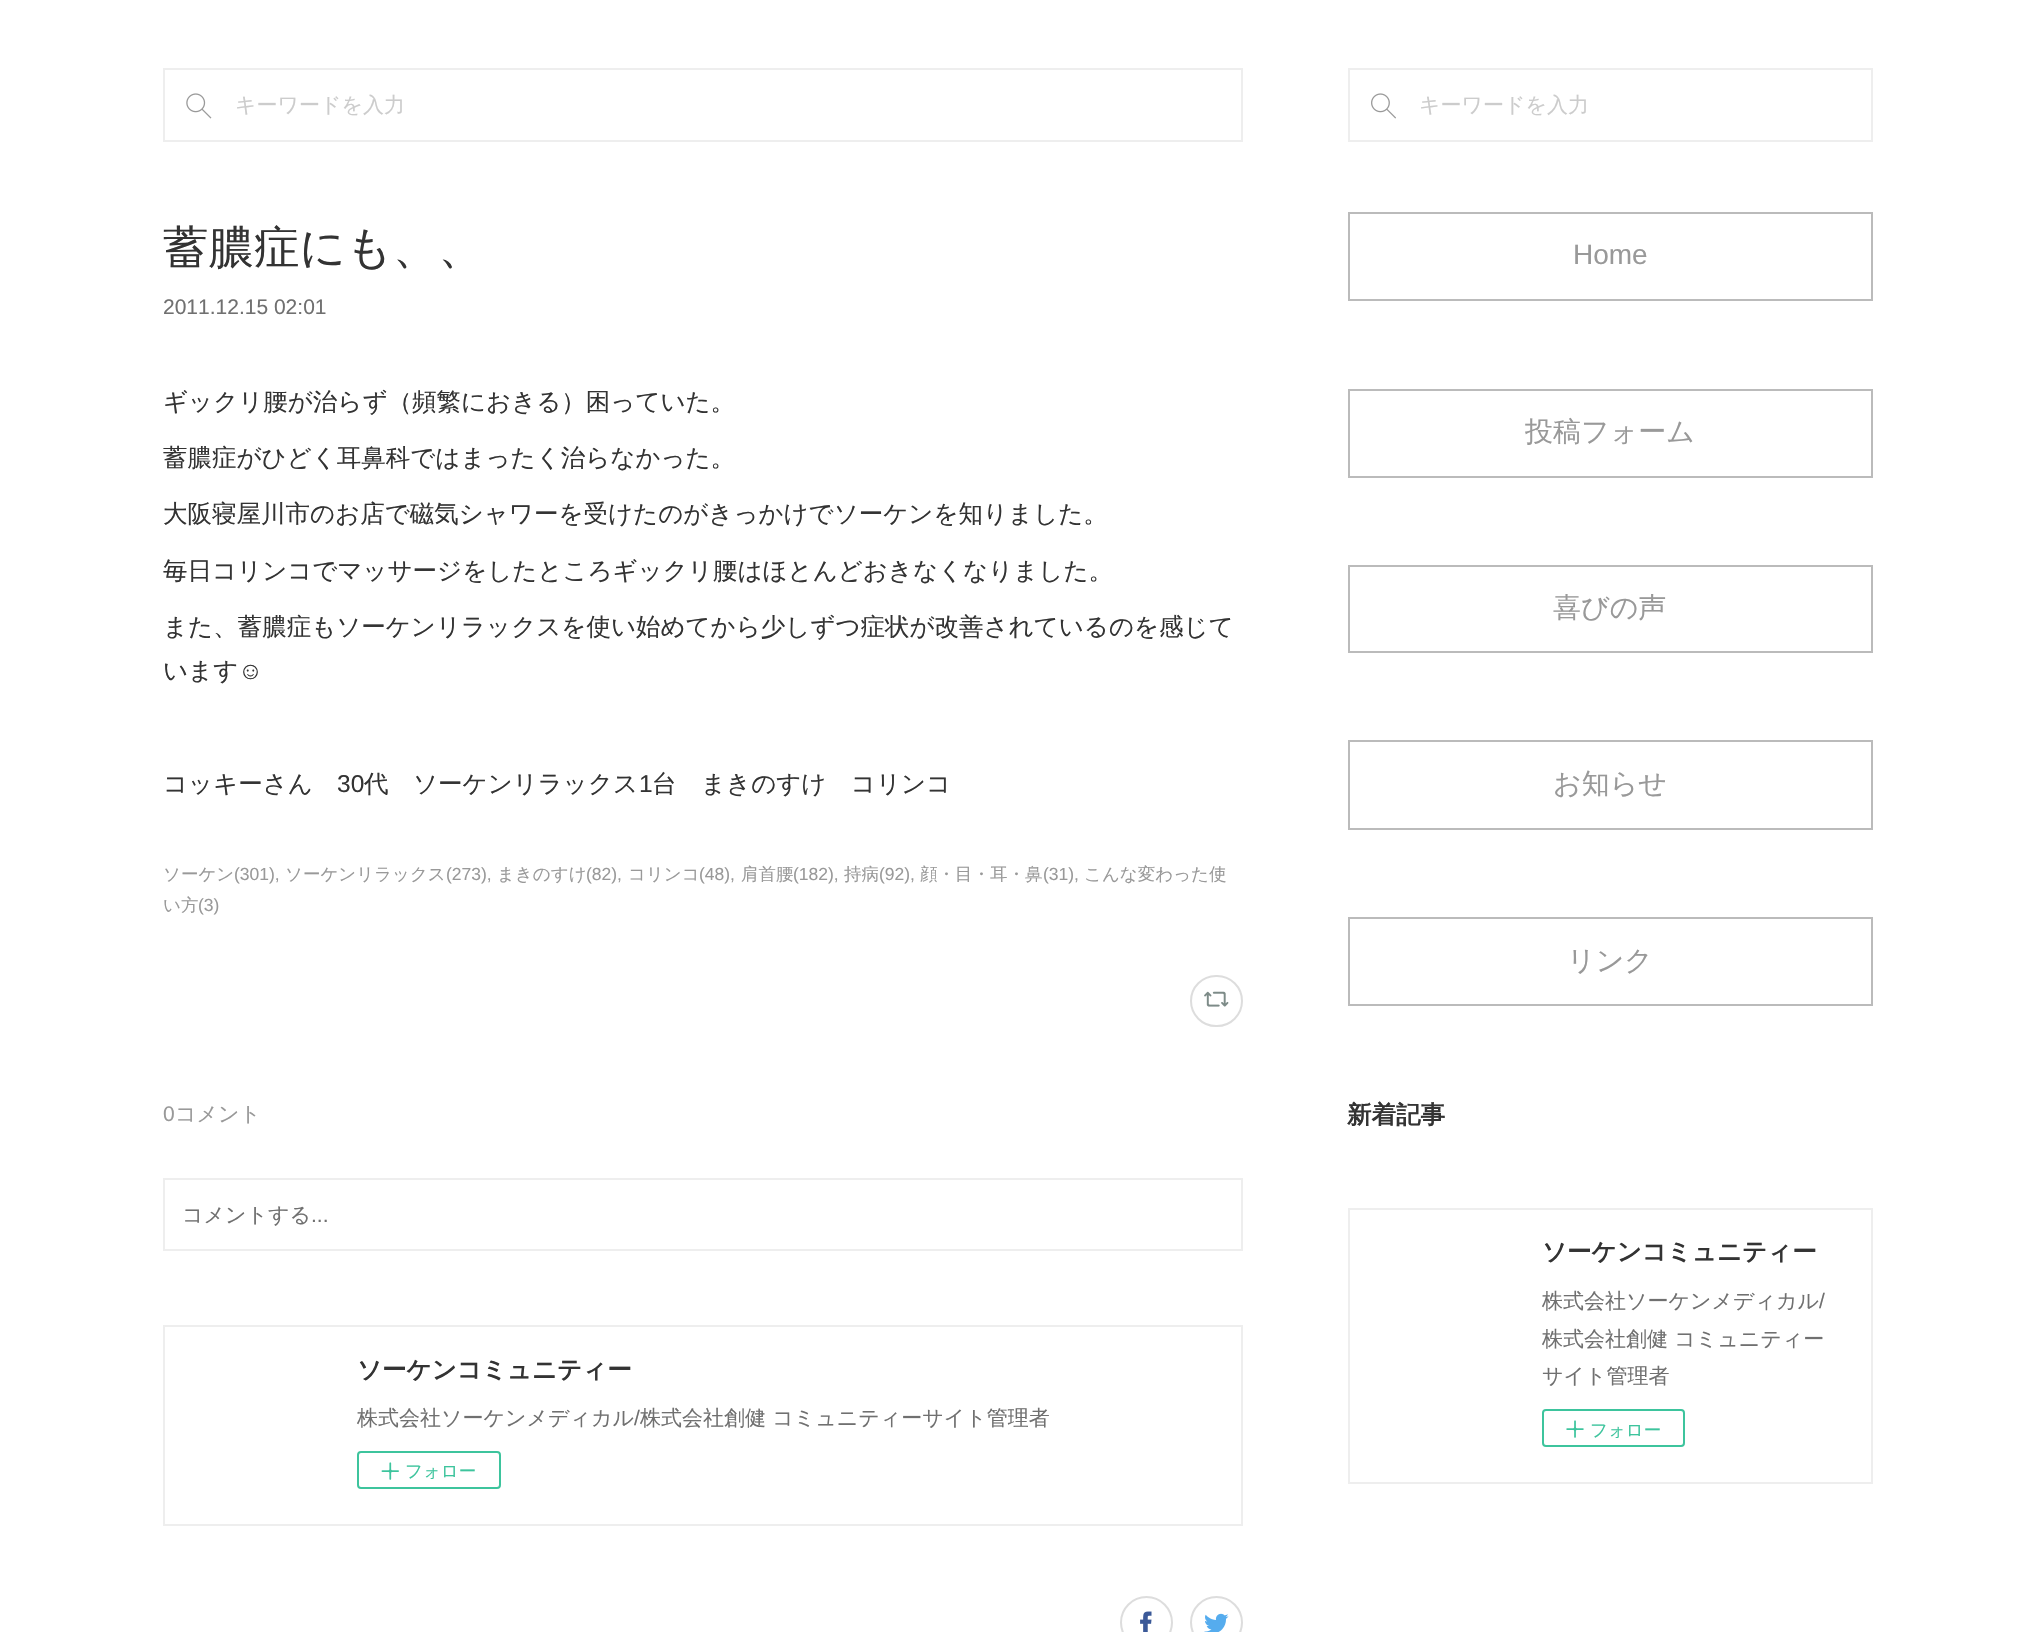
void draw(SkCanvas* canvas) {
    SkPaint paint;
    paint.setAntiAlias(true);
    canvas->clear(0xFFFFFFFF);
    paint.setStyle(SkPaint::kStroke_Style);
    paint.setStrokeWidth(2);
    paint.setColor(0xFFEEEEEE);
    canvas->drawRect(SkRect::MakeXYWH(164, 69, 1078, 72), paint);
    canvas->drawImageRect(SkImages::DeferredFromEncodedData(SkData::MakeFromFileName("img1.png")), SkRect::MakeXYWH(186, 93, 26, 26), SkSamplingOptions());
    SkFont font1(fontMgr->matchFamilyStyle("WenQuanYi Zen Hei", SkFontStyle(500, SkFontStyle::kNormal_Width, SkFontStyle::kUpright_Slant)), 21);
    font1.setSubpixel(true);
    paint.setStyle(SkPaint::kFill_Style);
    paint.setColor(0xFFCCCCCC);
    canvas->drawString("キーワードを入力", 235, 112, font1, paint);
    SkFont font2(fontMgr->matchFamilyStyle("WenQuanYi Zen Hei", SkFontStyle(500, SkFontStyle::kNormal_Width, SkFontStyle::kUpright_Slant)), 45.5f);
    font2.setSubpixel(true);
    paint.setColor(0xFF333333);
    canvas->drawString("蓄膿症にも、、", 163, 263, font2, paint);
    SkFont font3(fontMgr->matchFamilyStyle("Liberation Sans", SkFontStyle::Normal()), 21);
    font3.setSubpixel(true);
    paint.setColor(0xFF707070);
    canvas->drawString("2011.12.15 02:01", 163, 314, font3, paint);
    SkFont font4(fontMgr->matchFamilyStyle("WenQuanYi Zen Hei", SkFontStyle(500, SkFontStyle::kNormal_Width, SkFontStyle::kUpright_Slant)), 24.5f);
    font4.setSubpixel(true);
    paint.setColor(0xFF333333);
    canvas->drawString("ギックリ腰が治らず（頻繁におきる）困っていた。", 163, 410, font4, paint);
    canvas->drawString("蓄膿症がひどく耳鼻科ではまったく治らなかった。", 163, 466, font4, paint);
    canvas->drawString("大阪寝屋川市のお店で磁気シャワーを受けたのがきっかけでソーケンを知りました。", 163, 522, font4, paint);
    canvas->drawString("毎日コリンコでマッサージをしたところギックリ腰はほとんどおきなくなりました。", 163, 579, font4, paint);
    canvas->drawString("また、蓄膿症もソーケンリラックスを使い始めてから少しずつ症状が改善されているのを感じて", 163, 635, font4, paint);
    canvas->drawString("います", 163, 679, font4, paint);
    SkFont font5(fontMgr->matchFamilyStyle("Liberation Sans", SkFontStyle::Normal()), 24.5f);
    font5.setSubpixel(true);
    canvas->drawString("☺", 238, 679, font5, paint);
    canvas->drawString("コッキーさん", 163, 792, font4, paint);
    canvas->drawString("30", 337, 792, font5, paint);
    canvas->drawString("代　ソーケンリラックス", 364, 792, font4, paint);
    canvas->drawString("1", 639, 792, font5, paint);
    canvas->drawString("台　まきのすけ　コリンコ", 652, 792, font4, paint);
    SkFont font6(fontMgr->matchFamilyStyle("WenQuanYi Zen Hei", SkFontStyle(500, SkFontStyle::kNormal_Width, SkFontStyle::kUpright_Slant)), 17.5f);
    font6.setSubpixel(true);
    paint.setColor(0xFF999999);
    canvas->drawString("ソーケン", 163, 880, font6, paint);
    SkFont font7(fontMgr->matchFamilyStyle("Liberation Sans", SkFontStyle::Normal()), 17.5f);
    font7.setSubpixel(true);
    canvas->drawString("(301),", 234, 880, font7, paint);
    canvas->drawString("ソーケンリラックス", 285, 880, font6, paint);
    canvas->drawString("(273),", 446, 880, font7, paint);
    canvas->drawString("まきのすけ", 497, 880, font6, paint);
    canvas->drawString("(82),", 586, 880, font7, paint);
    canvas->drawString("コリンコ", 628, 880, font6, paint);
    canvas->drawString("(48),", 699, 880, font7, paint);
    canvas->drawString("肩首腰", 741, 880, font6, paint);
    canvas->drawString("(182),", 793, 880, font7, paint);
    canvas->drawString("持病", 844, 880, font6, paint);
    canvas->drawString("(92),", 879, 880, font7, paint);
    canvas->drawString("顔・目・耳・鼻", 920, 880, font6, paint);
    canvas->drawString("(31),", 1043, 880, font7, paint);
    canvas->drawString("こんな変わった使", 1084, 880, font6, paint);
    canvas->drawString("い方", 163, 911, font6, paint);
    canvas->drawString("(3)", 198, 911, font7, paint);
    paint.setStyle(SkPaint::kStroke_Style);
    paint.setColor(0xFFDDDDDD);
    canvas->drawRoundRect(SkRect::MakeXYWH(1191, 976, 51, 50), 25, 25, paint);
    canvas->drawImageRect(SkImages::DeferredFromEncodedData(SkData::MakeFromFileName("img2.png")), SkRect::MakeXYWH(1204, 991, 25, 16), SkSamplingOptions());
    paint.setStyle(SkPaint::kFill_Style);
    paint.setColor(0xFF999999);
    canvas->drawString("0", 163, 1121, font3, paint);
    canvas->drawString("コメント", 175, 1121, font1, paint);
    paint.setStyle(SkPaint::kStroke_Style);
    paint.setColor(0xFFEEEEEE);
    canvas->drawRect(SkRect::MakeXYWH(164, 1179, 1078, 71), paint);
    paint.setStyle(SkPaint::kFill_Style);
    paint.setColor(0xFF707070);
    canvas->drawString("コメントする", 182, 1222, font1, paint);
    canvas->drawString("...", 311, 1222, font3, paint);
    paint.setStyle(SkPaint::kStroke_Style);
    paint.setColor(0xFFEEEEEE);
    canvas->drawRect(SkRect::MakeXYWH(164, 1326, 1078, 199), paint);
    SkFont font8(fontMgr->matchFamilyStyle("WenQuanYi Zen Hei", SkFontStyle::Bold()), 24.5f);
    font8.setSubpixel(true);
    paint.setStyle(SkPaint::kFill_Style);
    paint.setColor(0xFF333333);
    canvas->drawString("ソーケンコミュニティー", 357, 1378, font8, paint);
    paint.setColor(0xFF707070);
    canvas->drawString("株式会社ソーケンメディカル", 357, 1425, font1, paint);
    canvas->drawString("/", 634, 1425, font3, paint);
    canvas->drawString("株式会社創健 コミュニティーサイト管理者", 640, 1425, font1, paint);
    paint.setStyle(SkPaint::kStroke_Style);
    paint.setColor(0xFF3DC49D);
    canvas->drawRoundRect(SkRect::MakeXYWH(358, 1452, 142, 36), 3, 3, paint);
    canvas->drawImageRect(SkImages::DeferredFromEncodedData(SkData::MakeFromFileName("img3.png")), SkRect::MakeXYWH(381, 1462, 18, 18), SkSamplingOptions());
    paint.setStyle(SkPaint::kFill_Style);
    canvas->drawString("フォロー", 405, 1477, font6, paint);
    paint.setStyle(SkPaint::kStroke_Style);
    paint.setColor(0xFFDDDDDD);
    canvas->drawCircle(1146.5f, 1622.5f, 25.5f, paint);
    canvas->drawImageRect(SkImages::DeferredFromEncodedData(SkData::MakeFromFileName("img4.png")), SkRect::MakeXYWH(1140, 1611, 12, 21), SkSamplingOptions());
    canvas->drawCircle(1216.5f, 1622.5f, 25.5f, paint);
    canvas->drawImageRect(SkImages::DeferredFromEncodedData(SkData::MakeFromFileName("img5.png")), SkRect::MakeXYWH(1204, 1613, 25, 19), SkSamplingOptions());
    paint.setColor(0xFFEEEEEE);
    canvas->drawRect(SkRect::MakeXYWH(1349, 69, 523, 72), paint);
    canvas->drawImageRect(SkImages::DeferredFromEncodedData(SkData::MakeFromFileName("img6.png")), SkRect::MakeXYWH(1371, 93, 25, 26), SkSamplingOptions());
    paint.setStyle(SkPaint::kFill_Style);
    paint.setColor(0xFFCCCCCC);
    canvas->drawString("キーワードを入力", 1419, 112, font1, paint);
    paint.setStyle(SkPaint::kStroke_Style);
    paint.setColor(0xFFBBBBBB);
    canvas->drawRect(SkRect::MakeXYWH(1349, 213, 523, 87), paint);
    SkFont font9(fontMgr->matchFamilyStyle("Liberation Sans", SkFontStyle::Normal()), 28);
    font9.setSubpixel(true);
    paint.setStyle(SkPaint::kFill_Style);
    paint.setColor(0xFF999999);
    canvas->drawString("Home", 1573, 264, font9, paint);
    paint.setStyle(SkPaint::kStroke_Style);
    paint.setColor(0xFFBBBBBB);
    canvas->drawRect(SkRect::MakeXYWH(1349, 390, 523, 87), paint);
    SkFont font10(fontMgr->matchFamilyStyle("WenQuanYi Zen Hei", SkFontStyle(500, SkFontStyle::kNormal_Width, SkFontStyle::kUpright_Slant)), 28);
    font10.setSubpixel(true);
    paint.setStyle(SkPaint::kFill_Style);
    paint.setColor(0xFF999999);
    canvas->drawString("投稿フォーム", 1525, 441, font10, paint);
    paint.setStyle(SkPaint::kStroke_Style);
    paint.setColor(0xFFBBBBBB);
    canvas->drawRect(SkRect::MakeXYWH(1349, 566, 523, 86), paint);
    paint.setStyle(SkPaint::kFill_Style);
    paint.setColor(0xFF999999);
    canvas->drawString("喜びの声", 1553, 617, font10, paint);
    paint.setStyle(SkPaint::kStroke_Style);
    paint.setColor(0xFFBBBBBB);
    canvas->drawRect(SkRect::MakeXYWH(1349, 741, 523, 88), paint);
    paint.setStyle(SkPaint::kFill_Style);
    paint.setColor(0xFF999999);
    canvas->drawString("お知らせ", 1553, 793, font10, paint);
    paint.setStyle(SkPaint::kStroke_Style);
    paint.setColor(0xFFBBBBBB);
    canvas->drawRect(SkRect::MakeXYWH(1349, 918, 523, 87), paint);
    paint.setStyle(SkPaint::kFill_Style);
    paint.setColor(0xFF999999);
    canvas->drawString("リンク", 1567, 970, font10, paint);
    paint.setColor(0xFF333333);
    canvas->drawString("新着記事", 1347, 1123, font8, paint);
    paint.setStyle(SkPaint::kStroke_Style);
    paint.setColor(0xFFEEEEEE);
    canvas->drawRect(SkRect::MakeXYWH(1349, 1209, 523, 274), paint);
    paint.setStyle(SkPaint::kFill_Style);
    paint.setColor(0xFF333333);
    canvas->drawString("ソーケンコミュニティー", 1542, 1260, font8, paint);
    paint.setColor(0xFF707070);
    canvas->drawString("株式会社ソーケンメディカル", 1542, 1308, font1, paint);
    canvas->drawString("/", 1819, 1308, font3, paint);
    canvas->drawString("株式会社創健 コミュニティー", 1542, 1346, font1, paint);
    canvas->drawString("サイト管理者", 1542, 1383, font1, paint);
    paint.setStyle(SkPaint::kStroke_Style);
    paint.setColor(0xFF3DC49D);
    canvas->drawRoundRect(SkRect::MakeXYWH(1543, 1410, 141, 36), 3, 3, paint);
    canvas->drawImageRect(SkImages::DeferredFromEncodedData(SkData::MakeFromFileName("img7.png")), SkRect::MakeXYWH(1566, 1420, 18, 18), SkSamplingOptions());
    paint.setStyle(SkPaint::kFill_Style);
    canvas->drawString("フォロー", 1590, 1436, font6, paint);
}
